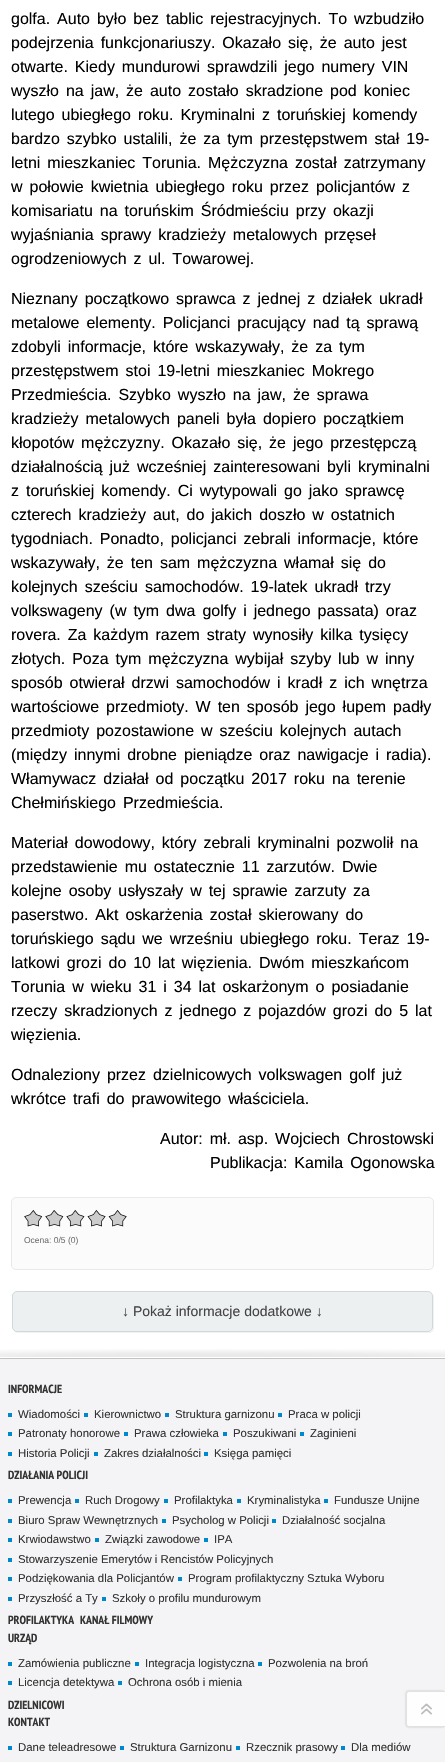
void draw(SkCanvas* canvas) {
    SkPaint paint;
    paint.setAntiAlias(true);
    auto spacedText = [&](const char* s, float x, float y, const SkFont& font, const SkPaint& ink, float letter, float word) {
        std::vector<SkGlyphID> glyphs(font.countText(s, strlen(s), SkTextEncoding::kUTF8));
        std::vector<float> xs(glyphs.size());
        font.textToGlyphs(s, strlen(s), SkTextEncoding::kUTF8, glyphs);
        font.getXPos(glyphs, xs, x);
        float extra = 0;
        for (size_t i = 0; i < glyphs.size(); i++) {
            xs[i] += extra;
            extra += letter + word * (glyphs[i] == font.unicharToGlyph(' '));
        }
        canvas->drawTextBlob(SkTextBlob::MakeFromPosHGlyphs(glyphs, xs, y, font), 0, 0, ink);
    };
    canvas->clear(0xFFFFFFFF);
    SkFont font1(fontMgr->matchFamilyStyle("Liberation Sans", SkFontStyle::Normal()), 16);
    font1.setSubpixel(true);
    paint.setColor(0xFF000000);
    spacedText("golfa. Auto było bez tablic rejestracyjnych. To wzbudziło", 11, 24, font1, paint, 0, 2.5f);
    spacedText("podejrzenia funkcjonariuszy. Okazało się, że auto jest", 11, 48, font1, paint, 0, 2.5f);
    spacedText("otwarte. Kiedy mundurowi sprawdzili jego numery VIN", 11, 72, font1, paint, 0, 2.5f);
    spacedText("wyszło na jaw, że auto zostało skradzione pod koniec", 11, 96, font1, paint, 0, 2.5f);
    spacedText("lutego ubiegłego roku. Kryminalni z toruńskiej komendy", 11, 120, font1, paint, 0, 2.5f);
    spacedText("bardzo szybko ustalili, że za tym przestępstwem stał 19-", 11, 144, font1, paint, 0, 2.5f);
    spacedText("letni mieszkaniec Torunia. Mężczyzna został zatrzymany", 11, 168, font1, paint, 0, 2.5f);
    spacedText("w połowie kwietnia ubiegłego roku przez policjantów z", 11, 192, font1, paint, 0, 2.5f);
    spacedText("komisariatu na toruńskim Śródmieściu przy okazji", 11, 216, font1, paint, 0, 2.5f);
    spacedText("wyjaśniania sprawy kradzieży metalowych przęseł", 11, 240, font1, paint, 0, 2.5f);
    spacedText("ogrodzeniowych z ul. Towarowej.", 11, 264, font1, paint, 0, 2.5f);
    spacedText("Nieznany początkowo sprawca z jednej z działek ukradł", 11, 304, font1, paint, 0, 2.5f);
    spacedText("metalowe elementy. Policjanci pracujący nad tą sprawą", 11, 328, font1, paint, 0, 2.5f);
    spacedText("zdobyli informacje, które wskazywały, że za tym", 11, 352, font1, paint, 0, 2.5f);
    spacedText("przestępstwem stoi 19-letni mieszkaniec Mokrego", 11, 376, font1, paint, 0, 2.5f);
    spacedText("Przedmieścia. Szybko wyszło na jaw, że sprawa", 11, 400, font1, paint, 0, 2.5f);
    spacedText("kradzieży metalowych paneli była dopiero początkiem", 11, 424, font1, paint, 0, 2.5f);
    spacedText("kłopotów mężczyzny. Okazało się, że jego przestępczą", 11, 448, font1, paint, 0, 2.5f);
    spacedText("działalnością już wcześniej zainteresowani byli kryminalni", 11, 472, font1, paint, 0, 2.5f);
    spacedText("z toruńskiej komendy. Ci wytypowali go jako sprawcę", 11, 496, font1, paint, 0, 2.5f);
    spacedText("czterech kradzieży aut, do jakich doszło w ostatnich", 11, 520, font1, paint, 0, 2.5f);
    spacedText("tygodniach. Ponadto, policjanci zebrali informacje, które", 11, 544, font1, paint, 0, 2.5f);
    spacedText("wskazywały, że ten sam mężczyzna włamał się do", 11, 568, font1, paint, 0, 2.5f);
    spacedText("kolejnych sześciu samochodów. 19-latek ukradł trzy", 11, 592, font1, paint, 0, 2.5f);
    spacedText("volkswageny (w tym dwa golfy i jednego passata) oraz", 11, 616, font1, paint, 0, 2.5f);
    spacedText("rovera. Za każdym razem straty wynosiły kilka tysięcy", 11, 640, font1, paint, 0, 2.5f);
    spacedText("złotych. Poza tym mężczyzna wybijał szyby lub w inny", 11, 664, font1, paint, 0, 2.5f);
    spacedText("sposób otwierał drzwi samochodów i kradł z ich wnętrza", 11, 688, font1, paint, 0, 2.5f);
    spacedText("wartościowe przedmioty. W ten sposób jego łupem padły", 11, 712, font1, paint, 0, 2.5f);
    spacedText("przedmioty pozostawione w sześciu kolejnych autach", 11, 736, font1, paint, 0, 2.5f);
    spacedText("(między innymi drobne pieniądze oraz nawigacje i radia).", 11, 760, font1, paint, 0, 2.5f);
    spacedText("Włamywacz działał od początku 2017 roku na terenie", 11, 784, font1, paint, 0, 2.5f);
    spacedText("Chełmińskiego Przedmieścia.", 11, 808, font1, paint, 0, 2.5f);
    spacedText("Materiał dowodowy, który zebrali kryminalni pozwolił na", 11, 848, font1, paint, 0, 2.5f);
    spacedText("przedstawienie mu ostatecznie 11 zarzutów. Dwie", 11, 872, font1, paint, 0, 2.5f);
    spacedText("kolejne osoby usłyszały w tej sprawie zarzuty za", 11, 896, font1, paint, 0, 2.5f);
    spacedText("paserstwo. Akt oskarżenia został skierowany do", 11, 920, font1, paint, 0, 2.5f);
    spacedText("toruńskiego sądu we wrześniu ubiegłego roku. Teraz 19-", 11, 944, font1, paint, 0, 2.5f);
    spacedText("latkowi grozi do 10 lat więzienia. Dwóm mieszkańcom", 11, 968, font1, paint, 0, 2.5f);
    spacedText("Torunia w wieku 31 i 34 lat oskarżonym o posiadanie", 11, 992, font1, paint, 0, 2.5f);
    spacedText("rzeczy skradzionych z jednego z pojazdów grozi do 5 lat", 11, 1016, font1, paint, 0, 2.5f);
    canvas->drawString("więzienia.", 11, 1040, font1, paint);
    spacedText("Odnaleziony przez dzielnicowych volkswagen golf już", 11, 1080, font1, paint, 0, 2.5f);
    spacedText("wkrótce trafi do prawowitego właściciela.", 11, 1104, font1, paint, 0, 2.5f);
    spacedText("Autor: mł. asp. Wojciech Chrostowski", 160, 1144, font1, paint, 0, 2.5f);
    spacedText("Publikacja: Kamila Ogonowska", 210, 1168, font1, paint, 0, 2.5f);
    paint.setColor(0xFFFBFBFB);
    canvas->drawRoundRect(SkRect::MakeXYWH(11.5f, 1197.5f, 422, 72), 4.5f, 4.5f, paint);
    paint.setStyle(SkPaint::kStroke_Style);
    paint.setStrokeWidth(1);
    paint.setColor(0xFFE9E9E9);
    canvas->drawRoundRect(SkRect::MakeXYWH(11.5f, 1197.5f, 422, 72), 4.5f, 4.5f, paint);
    paint.setStyle(SkPaint::kFill_Style);
    paint.setColor(0xFFCCCCCC);
    canvas->drawRect(SkRect::MakeXYWH(24, 1210, 103, 16), paint);
    canvas->drawImageRect(SkImages::DeferredFromEncodedData(SkData::MakeFromFileName("img1.png")), SkRect::MakeXYWH(24, 1210, 110, 25), SkSamplingOptions());
    SkFont font2(fontMgr->matchFamilyStyle("Liberation Sans", SkFontStyle::Normal()), 8.5f);
    font2.setSubpixel(true);
    paint.setColor(0xFF737373);
    canvas->drawString("Ocena: 0/5 (0)", 24, 1243, font2, paint);
    paint.setColor(0xFFF2F2F2);
    canvas->drawPath(SkPathBuilder().moveTo(14, 1331).cubicTo(15, 1332, 16, 1333, 18, 1333).lineTo(429, 1333).cubicTo(432, 1333, 434, 1331, 434, 1328).lineTo(434, 1297).cubicTo(434, 1295, 433, 1294, 432, 1293).cubicTo(433, 1294, 433, 1295, 433, 1296).lineTo(433, 1327).cubicTo(433, 1330, 431, 1332, 428, 1332).lineTo(17, 1332).cubicTo(16, 1332, 15, 1332, 14, 1331).close().detach(), paint);
    paint.setColor(0xFFECF0F1);
    canvas->drawRoundRect(SkRect::MakeXYWH(12.5f, 1291.5f, 420, 40), 4.5f, 4.5f, paint);
    paint.setStyle(SkPaint::kStroke_Style);
    paint.setColor(0xFFCFD9DB);
    canvas->drawRoundRect(SkRect::MakeXYWH(12.5f, 1291.5f, 420, 40), 4.5f, 4.5f, paint);
    SkFont font3(fontMgr->matchFamilyStyle("Liberation Sans", SkFontStyle::Normal()), 14);
    font3.setSubpixel(true);
    paint.setStyle(SkPaint::kFill_Style);
    paint.setColor(0xFF444444);
    canvas->drawString("↓ Pokaż informacje dodatkowe ↓", 122, 1316, font3, paint);
    canvas->drawImageRect(SkImages::DeferredFromEncodedData(SkData::MakeFromFileName("img2.png")), SkRect::MakeXYWH(0, 1349, 445, 8), SkSamplingOptions());
    paint.setColor(0xFFF4F4F6);
    canvas->drawRect(SkRect::MakeXYWH(0, 1359, 445, 403), paint);
    paint.setColor(0xFFC2C2C2);
    canvas->drawRect(SkRect::MakeXYWH(0, 1358, 445, 1), paint);
    SkFont font4(fontMgr->matchFamilyStyle("PT Sans Narrow", SkFontStyle::Bold()), 11.75f);
    font4.setSubpixel(true);
    paint.setColor(0xFF333333);
    canvas->drawString("INFORMACJE", 8, 1393, font4, paint);
    paint.setColor(0xFF0088CC);
    canvas->drawRect(SkRect::MakeXYWH(8, 1413, 4, 4), paint);
    SkFont font5(fontMgr->matchFamilyStyle("Liberation Sans", SkFontStyle::Normal()), 11.4f);
    font5.setSubpixel(true);
    paint.setColor(0xFF333333);
    canvas->drawString("Wiadomości", 18, 1418, font5, paint);
    paint.setColor(0xFF0088CC);
    canvas->drawRect(SkRect::MakeXYWH(84, 1413, 4, 4), paint);
    paint.setColor(0xFF333333);
    canvas->drawString("Kierownictwo", 94, 1418, font5, paint);
    paint.setColor(0xFF0088CC);
    canvas->drawRect(SkRect::MakeXYWH(165, 1413, 4, 4), paint);
    paint.setColor(0xFF333333);
    canvas->drawString("Struktura garnizonu", 175, 1418, font5, paint);
    paint.setColor(0xFF0088CC);
    canvas->drawRect(SkRect::MakeXYWH(278, 1413, 4, 4), paint);
    paint.setColor(0xFF333333);
    canvas->drawString("Praca w policji", 288, 1418, font5, paint);
    paint.setColor(0xFF0088CC);
    canvas->drawRect(SkRect::MakeXYWH(8, 1432, 4, 4), paint);
    paint.setColor(0xFF333333);
    canvas->drawString("Patronaty honorowe", 18, 1437, font5, paint);
    paint.setColor(0xFF0088CC);
    canvas->drawRect(SkRect::MakeXYWH(124, 1432, 4, 4), paint);
    paint.setColor(0xFF333333);
    canvas->drawString("Prawa człowieka", 134, 1437, font5, paint);
    paint.setColor(0xFF0088CC);
    canvas->drawRect(SkRect::MakeXYWH(223, 1432, 4, 4), paint);
    paint.setColor(0xFF333333);
    canvas->drawString("Poszukiwani", 233, 1437, font5, paint);
    paint.setColor(0xFF0088CC);
    canvas->drawRect(SkRect::MakeXYWH(300, 1432, 4, 4), paint);
    paint.setColor(0xFF333333);
    canvas->drawString("Zaginieni", 310, 1437, font5, paint);
    paint.setColor(0xFF0088CC);
    canvas->drawRect(SkRect::MakeXYWH(8, 1452, 4, 4), paint);
    paint.setColor(0xFF333333);
    canvas->drawString("Historia Policji", 18, 1457, font5, paint);
    paint.setColor(0xFF0088CC);
    canvas->drawRect(SkRect::MakeXYWH(94, 1452, 4, 4), paint);
    paint.setColor(0xFF333333);
    canvas->drawString("Zakres działalności", 104, 1457, font5, paint);
    paint.setColor(0xFF0088CC);
    canvas->drawRect(SkRect::MakeXYWH(204, 1452, 4, 4), paint);
    paint.setColor(0xFF333333);
    canvas->drawString("Księga pamięci", 214, 1457, font5, paint);
    canvas->drawString("DZIAŁANIA POLICJI", 8, 1479, font4, paint);
    paint.setColor(0xFF0088CC);
    canvas->drawRect(SkRect::MakeXYWH(8, 1499, 4, 4), paint);
    paint.setColor(0xFF333333);
    canvas->drawString("Prewencja", 18, 1504, font5, paint);
    paint.setColor(0xFF0088CC);
    canvas->drawRect(SkRect::MakeXYWH(75, 1499, 4, 4), paint);
    paint.setColor(0xFF333333);
    canvas->drawString("Ruch Drogowy", 85, 1504, font5, paint);
    paint.setColor(0xFF0088CC);
    canvas->drawRect(SkRect::MakeXYWH(164, 1499, 4, 4), paint);
    paint.setColor(0xFF333333);
    canvas->drawString("Profilaktyka", 174, 1504, font5, paint);
    paint.setColor(0xFF0088CC);
    canvas->drawRect(SkRect::MakeXYWH(237, 1499, 4, 4), paint);
    paint.setColor(0xFF333333);
    canvas->drawString("Kryminalistyka", 247, 1504, font5, paint);
    paint.setColor(0xFF0088CC);
    canvas->drawRect(SkRect::MakeXYWH(324, 1499, 4, 4), paint);
    paint.setColor(0xFF333333);
    canvas->drawString("Fundusze Unijne", 334, 1504, font5, paint);
    paint.setColor(0xFF0088CC);
    canvas->drawRect(SkRect::MakeXYWH(8, 1519, 4, 4), paint);
    paint.setColor(0xFF333333);
    canvas->drawString("Biuro Spraw Wewnętrznych", 18, 1524, font5, paint);
    paint.setColor(0xFF0088CC);
    canvas->drawRect(SkRect::MakeXYWH(162, 1519, 4, 4), paint);
    paint.setColor(0xFF333333);
    canvas->drawString("Psycholog w Policji", 172, 1524, font5, paint);
    paint.setColor(0xFF0088CC);
    canvas->drawRect(SkRect::MakeXYWH(272, 1519, 4, 4), paint);
    paint.setColor(0xFF333333);
    canvas->drawString("Działalność socjalna", 282, 1524, font5, paint);
    paint.setColor(0xFF0088CC);
    canvas->drawRect(SkRect::MakeXYWH(8, 1538, 4, 4), paint);
    paint.setColor(0xFF333333);
    canvas->drawString("Krwiodawstwo", 18, 1543, font5, paint);
    paint.setColor(0xFF0088CC);
    canvas->drawRect(SkRect::MakeXYWH(95, 1538, 4, 4), paint);
    paint.setColor(0xFF333333);
    canvas->drawString("Związki zawodowe", 105, 1543, font5, paint);
    paint.setColor(0xFF0088CC);
    canvas->drawRect(SkRect::MakeXYWH(204, 1538, 4, 4), paint);
    paint.setColor(0xFF333333);
    canvas->drawString("IPA", 214, 1543, font5, paint);
    paint.setColor(0xFF0088CC);
    canvas->drawRect(SkRect::MakeXYWH(8, 1558, 4, 4), paint);
    paint.setColor(0xFF333333);
    canvas->drawString("Stowarzyszenie Emerytów i Rencistów Policyjnych", 18, 1563, font5, paint);
    paint.setColor(0xFF0088CC);
    canvas->drawRect(SkRect::MakeXYWH(8, 1577, 4, 4), paint);
    paint.setColor(0xFF333333);
    canvas->drawString("Podziękowania dla Policjantów", 18, 1582, font5, paint);
    paint.setColor(0xFF0088CC);
    canvas->drawRect(SkRect::MakeXYWH(178, 1577, 4, 4), paint);
    paint.setColor(0xFF333333);
    canvas->drawString("Program profilaktyczny Sztuka Wyboru", 188, 1582, font5, paint);
    paint.setColor(0xFF0088CC);
    canvas->drawRect(SkRect::MakeXYWH(8, 1597, 4, 4), paint);
    paint.setColor(0xFF333333);
    canvas->drawString("Przyszłość a Ty", 18, 1602, font5, paint);
    paint.setColor(0xFF0088CC);
    canvas->drawRect(SkRect::MakeXYWH(102, 1597, 4, 4), paint);
    paint.setColor(0xFF333333);
    canvas->drawString("Szkoły o profilu mundurowym", 112, 1602, font5, paint);
    canvas->drawString("PROFILAKTYKA", 8, 1624, font4, paint);
    canvas->drawString("KANAŁ FILMOWY", 80, 1624, font4, paint);
    canvas->drawString("URZĄD", 8, 1642, font4, paint);
    paint.setColor(0xFF0088CC);
    canvas->drawRect(SkRect::MakeXYWH(8, 1662, 4, 4), paint);
    paint.setColor(0xFF333333);
    canvas->drawString("Zamówienia publiczne", 18, 1667, font5, paint);
    paint.setColor(0xFF0088CC);
    canvas->drawRect(SkRect::MakeXYWH(135, 1662, 4, 4), paint);
    paint.setColor(0xFF333333);
    canvas->drawString("Integracja logistyczna", 145, 1667, font5, paint);
    paint.setColor(0xFF0088CC);
    canvas->drawRect(SkRect::MakeXYWH(258, 1662, 4, 4), paint);
    paint.setColor(0xFF333333);
    canvas->drawString("Pozwolenia na broń", 268, 1667, font5, paint);
    paint.setColor(0xFF0088CC);
    canvas->drawRect(SkRect::MakeXYWH(8, 1681, 4, 4), paint);
    paint.setColor(0xFF333333);
    canvas->drawString("Licencja detektywa", 18, 1686, font5, paint);
    paint.setColor(0xFF0088CC);
    canvas->drawRect(SkRect::MakeXYWH(118, 1681, 4, 4), paint);
    paint.setColor(0xFF333333);
    canvas->drawString("Ochrona osób i mienia", 128, 1686, font5, paint);
    canvas->drawString("DZIELNICOWI", 8, 1709, font4, paint);
    canvas->drawString("KONTAKT", 8, 1726, font4, paint);
    paint.setColor(0xFF0088CC);
    canvas->drawRect(SkRect::MakeXYWH(8, 1746, 4, 4), paint);
    paint.setColor(0xFF333333);
    canvas->drawString("Dane teleadresowe", 18, 1751, font5, paint);
    paint.setColor(0xFF0088CC);
    canvas->drawRect(SkRect::MakeXYWH(120, 1746, 4, 4), paint);
    paint.setColor(0xFF333333);
    canvas->drawString("Struktura Garnizonu", 130, 1751, font5, paint);
    paint.setColor(0xFF0088CC);
    canvas->drawRect(SkRect::MakeXYWH(236, 1746, 4, 4), paint);
    paint.setColor(0xFF333333);
    canvas->drawString("Rzecznik prasowy", 246, 1751, font5, paint);
    paint.setColor(0xFF0088CC);
    canvas->drawRect(SkRect::MakeXYWH(341, 1746, 4, 4), paint);
    paint.setColor(0xFF333333);
    canvas->drawString("Dla mediów", 351, 1751, font5, paint);
    paint.setColor(0x40000000);
    paint.setMaskFilter(SkMaskFilter::MakeBlur(kNormal_SkBlurStyle, 1));
    canvas->drawRoundRect(SkRect::MakeXYWH(406, 1691, 39, 36), 3, 3, paint);
    paint.setMaskFilter(nullptr);
    paint.setColor(0xFFFEFEFE);
    canvas->drawPath(SkPathBuilder().moveTo(409, 1691).lineTo(445, 1691).lineTo(445, 1727).lineTo(409, 1727).cubicTo(407.5f, 1727, 406, 1725.5f, 406, 1724).lineTo(406, 1694).cubicTo(406, 1692.5f, 407.5f, 1691, 409, 1691).close().detach(), paint);
    paint.setColor(0xFFE1E1E1);
    canvas->drawPath(SkPathBuilder(SkPathFillType::kEvenOdd).moveTo(409, 1691).lineTo(445, 1691).lineTo(445, 1727).lineTo(409, 1727).cubicTo(407.5f, 1727, 406, 1725.5f, 406, 1724).lineTo(406, 1694).cubicTo(406, 1692.5f, 407.5f, 1691, 409, 1691).close().moveTo(409, 1692).lineTo(445, 1692).lineTo(445, 1726).lineTo(409, 1726).cubicTo(408, 1726, 407, 1725, 407, 1724).lineTo(407, 1694).cubicTo(407, 1693, 408, 1692, 409, 1692).close().detach(), paint);
    canvas->drawImageRect(SkImages::DeferredFromEncodedData(SkData::MakeFromFileName("img3.png")), SkRect::MakeXYWH(421, 1703, 11, 12), SkSamplingOptions());
}
